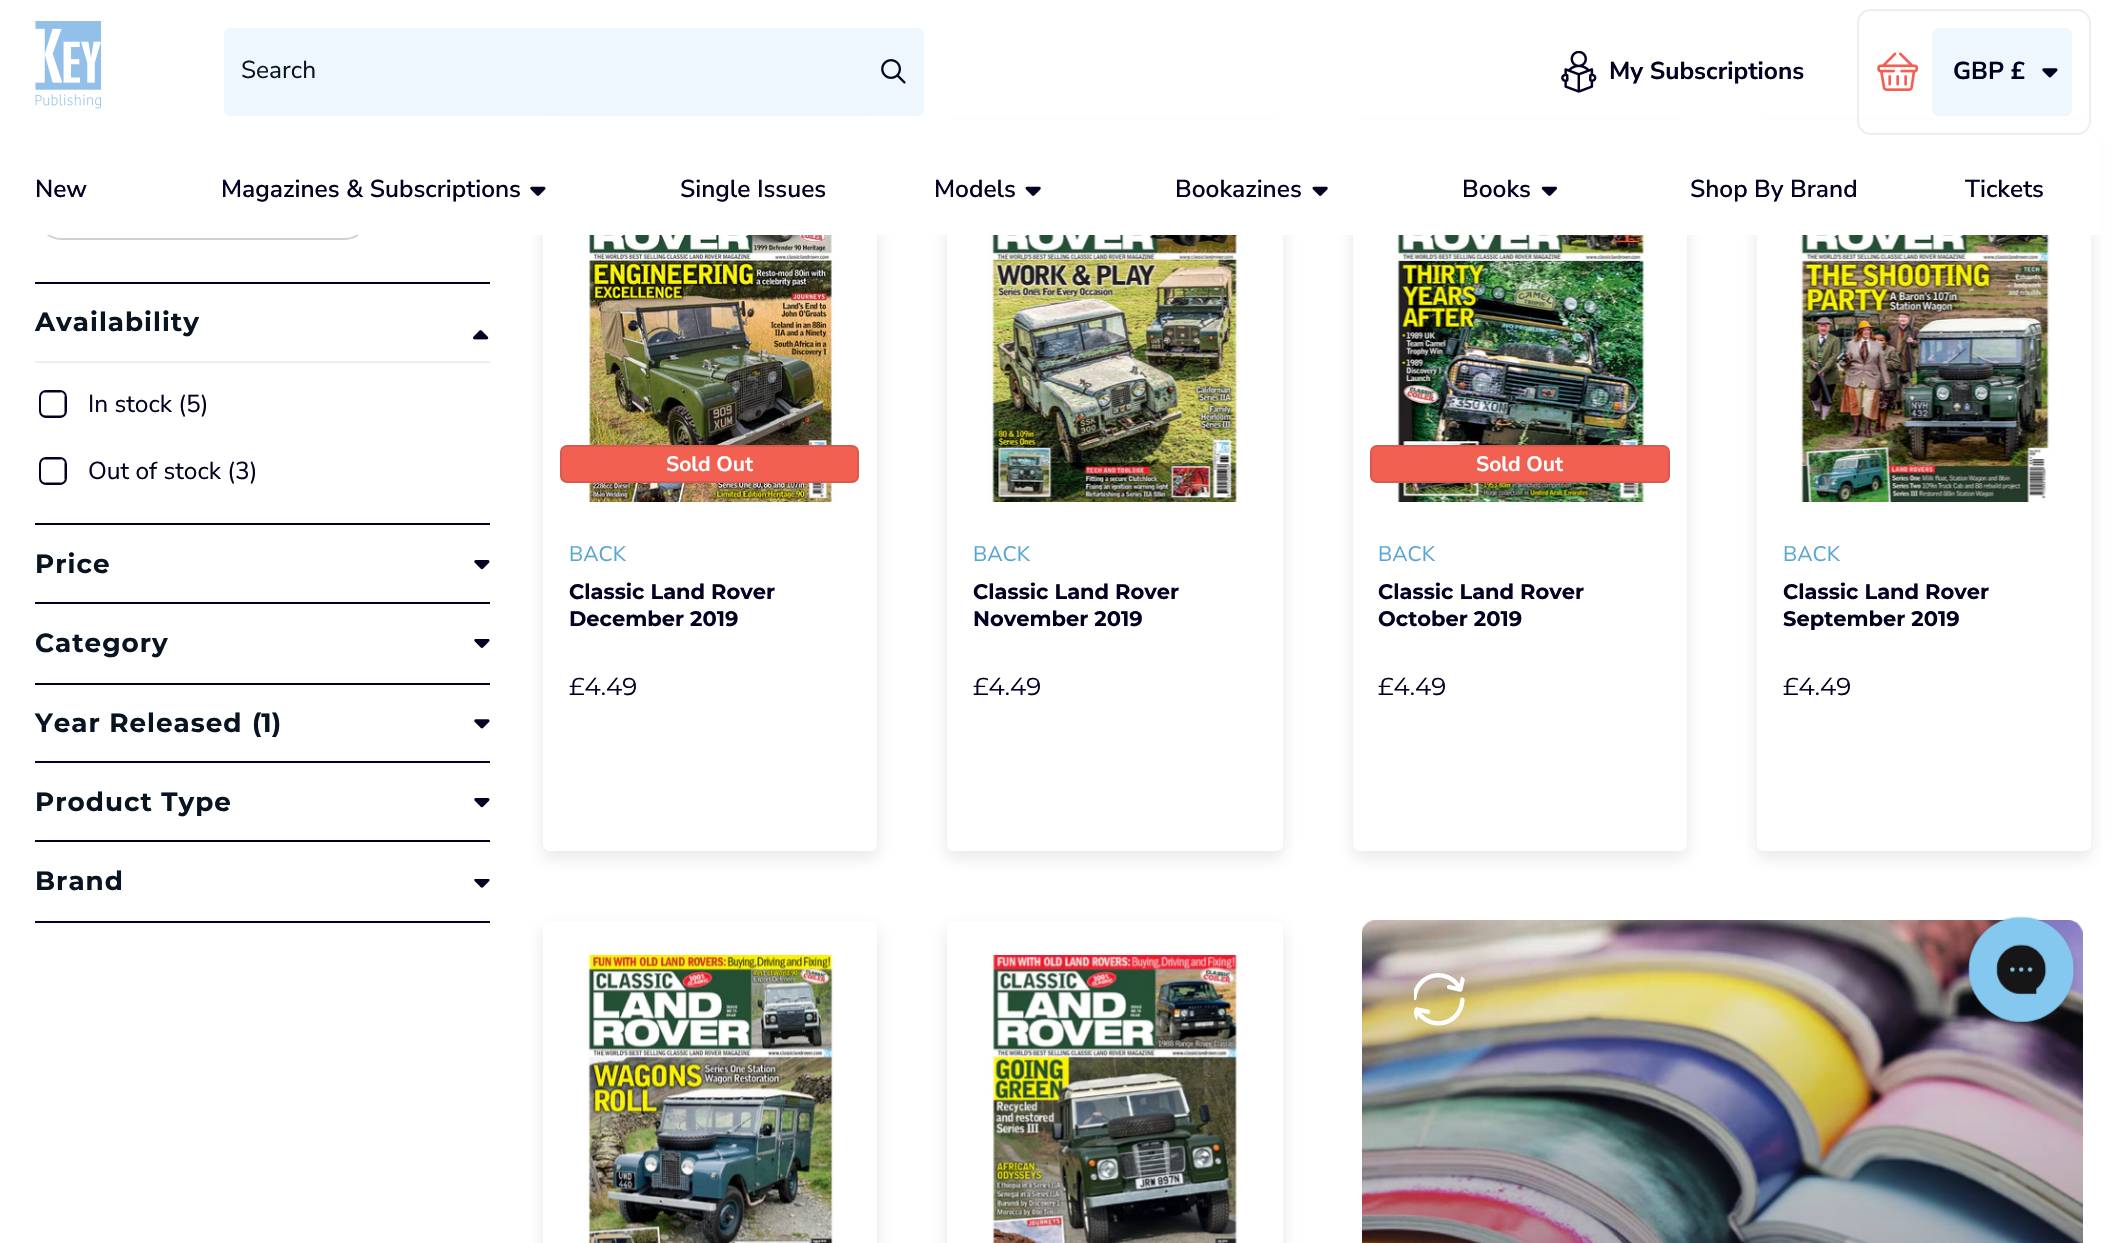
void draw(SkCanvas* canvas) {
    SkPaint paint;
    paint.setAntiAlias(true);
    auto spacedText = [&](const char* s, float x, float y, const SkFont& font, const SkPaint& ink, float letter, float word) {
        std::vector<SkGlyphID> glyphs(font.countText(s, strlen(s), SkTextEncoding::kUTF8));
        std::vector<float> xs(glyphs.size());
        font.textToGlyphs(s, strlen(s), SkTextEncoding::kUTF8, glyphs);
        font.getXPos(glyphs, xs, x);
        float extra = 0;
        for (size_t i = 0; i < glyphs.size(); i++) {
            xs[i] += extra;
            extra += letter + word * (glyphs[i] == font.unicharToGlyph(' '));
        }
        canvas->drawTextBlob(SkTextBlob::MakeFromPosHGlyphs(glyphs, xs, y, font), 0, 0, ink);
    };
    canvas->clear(0xFFFFFFFF);
    paint.setStyle(SkPaint::kStroke_Style);
    paint.setStrokeWidth(2);
    paint.setColor(0xFFCED0D3);
    canvas->drawRoundRect(SkRect::MakeXYWH(38, 192, 330, 47), 23.5f, 23.5f, paint);
    canvas->save();
    canvas->clipPath(SkPathBuilder(SkPathFillType::kEvenOdd).moveTo(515, 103).lineTo(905, 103).lineTo(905, 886).lineTo(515, 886).close().moveTo(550, 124).lineTo(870, 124).cubicTo(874, 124, 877, 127, 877, 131).lineTo(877, 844).cubicTo(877, 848, 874, 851, 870, 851).lineTo(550, 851).cubicTo(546, 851, 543, 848, 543, 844).lineTo(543, 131).cubicTo(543, 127, 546, 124, 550, 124).close().detach(), true);
    paint.setStyle(SkPaint::kFill_Style);
    paint.setColor(0x1A121212);
    paint.setMaskFilter(SkMaskFilter::MakeBlur(kNormal_SkBlurStyle, 9));
    canvas->drawRoundRect(SkRect::MakeXYWH(543, 131, 334, 727), 7, 7, paint);
    paint.setMaskFilter(nullptr);
    canvas->restore();
    canvas->save();
    canvas->clipPath(SkPathBuilder(SkPathFillType::kEvenOdd).moveTo(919, 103).lineTo(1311, 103).lineTo(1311, 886).lineTo(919, 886).close().moveTo(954, 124).lineTo(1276, 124).cubicTo(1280, 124, 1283, 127, 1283, 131).lineTo(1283, 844).cubicTo(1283, 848, 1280, 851, 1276, 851).lineTo(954, 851).cubicTo(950, 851, 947, 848, 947, 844).lineTo(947, 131).cubicTo(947, 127, 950, 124, 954, 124).close().detach(), true);
    paint.setMaskFilter(SkMaskFilter::MakeBlur(kNormal_SkBlurStyle, 9));
    canvas->drawRoundRect(SkRect::MakeXYWH(947, 131, 336, 727), 7, 7, paint);
    paint.setMaskFilter(nullptr);
    canvas->restore();
    canvas->save();
    canvas->clipPath(SkPathBuilder(SkPathFillType::kEvenOdd).moveTo(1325, 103).lineTo(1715, 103).lineTo(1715, 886).lineTo(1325, 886).close().moveTo(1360, 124).lineTo(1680, 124).cubicTo(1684, 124, 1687, 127, 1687, 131).lineTo(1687, 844).cubicTo(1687, 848, 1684, 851, 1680, 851).lineTo(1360, 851).cubicTo(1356, 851, 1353, 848, 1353, 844).lineTo(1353, 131).cubicTo(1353, 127, 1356, 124, 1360, 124).close().detach(), true);
    paint.setMaskFilter(SkMaskFilter::MakeBlur(kNormal_SkBlurStyle, 9));
    canvas->drawRoundRect(SkRect::MakeXYWH(1353, 131, 334, 727), 7, 7, paint);
    paint.setMaskFilter(nullptr);
    canvas->restore();
    canvas->save();
    canvas->clipPath(SkPathBuilder(SkPathFillType::kEvenOdd).moveTo(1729, 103).lineTo(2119, 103).lineTo(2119, 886).lineTo(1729, 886).close().moveTo(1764, 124).lineTo(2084, 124).cubicTo(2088, 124, 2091, 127, 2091, 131).lineTo(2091, 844).cubicTo(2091, 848, 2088, 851, 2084, 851).lineTo(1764, 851).cubicTo(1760, 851, 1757, 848, 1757, 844).lineTo(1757, 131).cubicTo(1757, 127, 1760, 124, 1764, 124).close().detach(), true);
    paint.setMaskFilter(SkMaskFilter::MakeBlur(kNormal_SkBlurStyle, 9));
    canvas->drawRoundRect(SkRect::MakeXYWH(1757, 131, 334, 727), 7, 7, paint);
    paint.setMaskFilter(nullptr);
    canvas->restore();
    paint.setColor(0xFFFFFFFF);
    canvas->drawRect(SkRect::MakeXYWH(37, 120, 2065, 115), paint);
    canvas->drawImageRect(SkImages::DeferredFromEncodedData(SkData::MakeFromFileName("img1.png")), SkRect::MakeXYWH(35, 21, 67, 88), SkSamplingOptions());
    paint.setColor(0xFFEDF7FD);
    canvas->drawRoundRect(SkRect::MakeXYWH(224, 28, 700, 88), 7, 7, paint);
    SkFont font1(fontMgr->matchFamilyStyle("Nunito Sans", SkFontStyle::Normal()), 24.5f);
    font1.setSubpixel(true);
    paint.setColor(0xFF081422);
    canvas->drawString("Search", 241, 78, font1, paint);
    canvas->drawImageRect(SkImages::DeferredFromEncodedData(SkData::MakeFromFileName("img2.png")), SkRect::MakeXYWH(881, 59, 25, 25), SkSamplingOptions());
    canvas->drawImageRect(SkImages::DeferredFromEncodedData(SkData::MakeFromFileName("img3.png")), SkRect::MakeXYWH(1561, 51, 36, 42), SkSamplingOptions());
    SkFont font2(fontMgr->matchFamilyStyle("Nunito Sans", SkFontStyle::Bold()), 24.5f);
    font2.setSubpixel(true);
    paint.setColor(0xFF020122);
    canvas->drawString("My Subscriptions", 1609, 79, font2, paint);
    paint.setStyle(SkPaint::kStroke_Style);
    paint.setColor(0xFFEEEEF2);
    canvas->drawRoundRect(SkRect::MakeXYWH(1858, 10, 232, 124), 13, 13, paint);
    canvas->drawImageRect(SkImages::DeferredFromEncodedData(SkData::MakeFromFileName("img4.png")), SkRect::MakeXYWH(1877, 52, 41, 39), SkSamplingOptions());
    paint.setStyle(SkPaint::kFill_Style);
    paint.setColor(0xFFEDF7FD);
    canvas->drawRoundRect(SkRect::MakeXYWH(1932, 28, 140, 88), 7, 7, paint);
    paint.setColor(0xFF020122);
    canvas->drawString("GBP £", 1953, 79, font2, paint);
    canvas->drawImageRect(SkImages::DeferredFromEncodedData(SkData::MakeFromFileName("img5.png")), SkRect::MakeXYWH(2042, 68, 16, 10), SkSamplingOptions());
    SkFont font3(fontMgr->matchFamilyStyle("Nunito Sans", SkFontStyle(600, SkFontStyle::kNormal_Width, SkFontStyle::kUpright_Slant)), 24.5f);
    font3.setSubpixel(true);
    canvas->drawString("New", 35, 197, font3, paint);
    canvas->drawString("Magazines & Subscriptions", 221, 197, font3, paint);
    canvas->drawImageRect(SkImages::DeferredFromEncodedData(SkData::MakeFromFileName("img6.png")), SkRect::MakeXYWH(530, 186, 16, 10), SkSamplingOptions());
    canvas->drawString("Single Issues", 680, 197, font3, paint);
    canvas->drawString("Models", 934, 197, font3, paint);
    canvas->drawImageRect(SkImages::DeferredFromEncodedData(SkData::MakeFromFileName("img7.png")), SkRect::MakeXYWH(1025, 186, 16, 10), SkSamplingOptions());
    canvas->drawString("Bookazines", 1175, 197, font3, paint);
    canvas->drawImageRect(SkImages::DeferredFromEncodedData(SkData::MakeFromFileName("img7.png")), SkRect::MakeXYWH(1312, 186, 16, 10), SkSamplingOptions());
    canvas->drawString("Books", 1462, 197, font3, paint);
    canvas->drawImageRect(SkImages::DeferredFromEncodedData(SkData::MakeFromFileName("img8.png")), SkRect::MakeXYWH(1541, 186, 16, 10), SkSamplingOptions());
    canvas->drawString("Shop By Brand", 1690, 197, font3, paint);
    canvas->drawString("Tickets", 1965, 197, font3, paint);
    canvas->drawRect(SkRect::MakeXYWH(35, 282, 455, 2), paint);
    canvas->drawRect(SkRect::MakeXYWH(35, 523, 455, 2), paint);
    paint.setColor(0xFFEEEEF2);
    canvas->drawRect(SkRect::MakeXYWH(35, 361, 455, 2), paint);
    SkFont font4(fontMgr->matchFamilyStyle("Montserrat", SkFontStyle::Bold()), 26.25f);
    font4.setSubpixel(true);
    paint.setColor(0xFF081422);
    spacedText("Availability", 35, 331, font4, paint, 1, 0);
    canvas->drawImageRect(SkImages::DeferredFromEncodedData(SkData::MakeFromFileName("img9.png")), SkRect::MakeXYWH(473, 330, 16, 10), SkSamplingOptions());
    paint.setStyle(SkPaint::kStroke_Style);
    paint.setColor(0xFF020122);
    canvas->drawRoundRect(SkRect::MakeXYWH(40, 391, 26, 26), 6, 6, paint);
    paint.setStyle(SkPaint::kFill_Style);
    canvas->drawPath(SkPathBuilder(SkPathFillType::kEvenOdd).moveTo(45, 417).lineTo(60, 417).cubicTo(61.5f, 417, 62.5f, 416.5f, 63.5f, 415.5f).lineTo(41.5f, 415.5f).cubicTo(42.5f, 416.5f, 43.5f, 417, 45, 417).close().moveTo(40.5f, 414).lineTo(40.5f, 395).cubicTo(39.5f, 397.5f, 40, 402, 40, 404.5f).cubicTo(40, 407, 39.5f, 411.5f, 40.5f, 414).close().moveTo(45, 392).lineTo(43, 392.5f).lineTo(62, 392.5f).lineTo(60, 392).close().moveTo(64.5f, 395).lineTo(64.5f, 414).cubicTo(65.5f, 411.5f, 65, 407, 65, 404.5f).cubicTo(65, 402, 65.5f, 397.5f, 64.5f, 395).close().detach(), paint);
    canvas->drawString("In stock (5)", 88, 412, font1, paint);
    paint.setStyle(SkPaint::kStroke_Style);
    canvas->drawRoundRect(SkRect::MakeXYWH(40, 458, 26, 26), 6, 6, paint);
    paint.setStyle(SkPaint::kFill_Style);
    canvas->drawPath(SkPathBuilder(SkPathFillType::kEvenOdd).moveTo(45, 459).lineTo(43, 459.5f).lineTo(62, 459.5f).lineTo(60, 459).close().moveTo(64.5f, 462).lineTo(64.5f, 480).cubicTo(65.5f, 477.5f, 65, 473.5f, 65, 471).cubicTo(65, 468.5f, 65.5f, 464.5f, 64.5f, 462).close().moveTo(62, 482.5f).lineTo(43, 482.5f).cubicTo(45.5f, 483.5f, 50, 483, 52.5f, 483).cubicTo(55, 483, 59.5f, 483.5f, 62, 482.5f).close().moveTo(40.5f, 480).lineTo(40.5f, 462).cubicTo(39.5f, 464.5f, 40, 468.5f, 40, 471).cubicTo(40, 473.5f, 39.5f, 477.5f, 40.5f, 480).close().detach(), paint);
    canvas->drawString("Out of stock (3)", 88, 479, font1, paint);
    canvas->drawRect(SkRect::MakeXYWH(35, 602, 455, 2), paint);
    paint.setColor(0xFF081422);
    spacedText("Price", 35, 573, font4, paint, 1, 0);
    canvas->drawImageRect(SkImages::DeferredFromEncodedData(SkData::MakeFromFileName("img10.png")), SkRect::MakeXYWH(474, 560, 16, 10), SkSamplingOptions());
    paint.setColor(0xFF020122);
    canvas->drawRect(SkRect::MakeXYWH(35, 683, 455, 2), paint);
    paint.setColor(0xFF081422);
    spacedText("Category", 35, 652, font4, paint, 1, 0);
    canvas->drawImageRect(SkImages::DeferredFromEncodedData(SkData::MakeFromFileName("img11.png")), SkRect::MakeXYWH(474, 639, 16, 9), SkSamplingOptions());
    paint.setColor(0xFF020122);
    canvas->drawRect(SkRect::MakeXYWH(35, 761, 455, 2), paint);
    paint.setColor(0xFF081422);
    spacedText("Year Released", 35, 732, font4, paint, 1, 0);
    canvas->drawString("(1)", 252, 732, font4, paint);
    canvas->drawImageRect(SkImages::DeferredFromEncodedData(SkData::MakeFromFileName("img12.png")), SkRect::MakeXYWH(474, 719, 16, 10), SkSamplingOptions());
    paint.setColor(0xFF020122);
    canvas->drawRect(SkRect::MakeXYWH(35, 840, 455, 2), paint);
    paint.setColor(0xFF081422);
    spacedText("Product Type", 35, 811, font4, paint, 1, 0);
    canvas->drawImageRect(SkImages::DeferredFromEncodedData(SkData::MakeFromFileName("img10.png")), SkRect::MakeXYWH(474, 798, 16, 10), SkSamplingOptions());
    paint.setColor(0xFF020122);
    canvas->drawRect(SkRect::MakeXYWH(35, 921, 455, 2), paint);
    paint.setColor(0xFF081422);
    spacedText("Brand", 35, 890, font4, paint, 1, 0);
    canvas->drawImageRect(SkImages::DeferredFromEncodedData(SkData::MakeFromFileName("img13.png")), SkRect::MakeXYWH(474, 879, 16, 9), SkSamplingOptions());
    canvas->drawImageRect(SkImages::DeferredFromEncodedData(SkData::MakeFromFileName("img14.png")), SkRect::MakeXYWH(584, 235, 253, 267), SkSamplingOptions());
    paint.setColor(0xFFF26052);
    canvas->drawRoundRect(SkRect::MakeXYWH(560, 445, 299, 38), 7, 7, paint);
    paint.setStyle(SkPaint::kStroke_Style);
    paint.setColor(0x1A081422);
    canvas->drawRoundRect(SkRect::MakeXYWH(561, 446, 297, 36), 6, 6, paint);
    SkFont font5(fontMgr->matchFamilyStyle("Nunito Sans", SkFontStyle::Bold()), 21);
    font5.setSubpixel(true);
    paint.setStyle(SkPaint::kFill_Style);
    paint.setColor(0xFFFFFFFF);
    canvas->drawString("Sold Out", 666, 471, font5, paint);
    SkFont font6(fontMgr->matchFamilyStyle("Nunito Sans", SkFontStyle::Normal()), 21);
    font6.setSubpixel(true);
    paint.setColor(0xFF59A5D2);
    canvas->drawString("BACK", 569, 561, font6, paint);
    SkFont font7(fontMgr->matchFamilyStyle("Montserrat", SkFontStyle::Bold()), 21);
    font7.setSubpixel(true);
    paint.setColor(0xFF020122);
    canvas->drawString("Classic Land Rover", 569, 599, font7, paint);
    canvas->drawString("December 2019", 569, 626, font7, paint);
    SkFont font8(fontMgr->matchFamilyStyle("Montserrat", SkFontStyle(100, SkFontStyle::kNormal_Width, SkFontStyle::kUpright_Slant)), 24.5f);
    font8.setSubpixel(true);
    canvas->drawString("£4.49", 569, 695, font8, paint);
    canvas->drawImageRect(SkImages::DeferredFromEncodedData(SkData::MakeFromFileName("img15.png")), SkRect::MakeXYWH(989, 235, 252, 267), SkSamplingOptions());
    paint.setColor(0xFF59A5D2);
    canvas->drawString("BACK", 973, 561, font6, paint);
    paint.setColor(0xFF020122);
    canvas->drawString("Classic Land Rover", 973, 599, font7, paint);
    canvas->drawString("November 2019", 973, 626, font7, paint);
    canvas->drawString("£4.49", 973, 695, font8, paint);
    canvas->drawImageRect(SkImages::DeferredFromEncodedData(SkData::MakeFromFileName("img16.png")), SkRect::MakeXYWH(1395, 235, 252, 267), SkSamplingOptions());
    paint.setColor(0xFFF26052);
    canvas->drawRoundRect(SkRect::MakeXYWH(1370, 445, 300, 38), 7, 7, paint);
    paint.setStyle(SkPaint::kStroke_Style);
    paint.setColor(0x1A081422);
    canvas->drawRoundRect(SkRect::MakeXYWH(1371, 446, 298, 36), 6, 6, paint);
    paint.setStyle(SkPaint::kFill_Style);
    paint.setColor(0xFFFFFFFF);
    canvas->drawString("Sold Out", 1476, 471, font5, paint);
    paint.setColor(0xFF59A5D2);
    canvas->drawString("BACK", 1378, 561, font6, paint);
    paint.setColor(0xFF020122);
    canvas->drawString("Classic Land Rover", 1378, 599, font7, paint);
    canvas->drawString("October 2019", 1378, 626, font7, paint);
    canvas->drawString("£4.49", 1378, 695, font8, paint);
    canvas->drawImageRect(SkImages::DeferredFromEncodedData(SkData::MakeFromFileName("img17.png")), SkRect::MakeXYWH(1799, 235, 252, 267), SkSamplingOptions());
    paint.setColor(0xFF59A5D2);
    canvas->drawString("BACK", 1783, 561, font6, paint);
    paint.setColor(0xFF020122);
    canvas->drawString("Classic Land Rover", 1783, 599, font7, paint);
    canvas->drawString("September 2019", 1783, 626, font7, paint);
    canvas->drawString("£4.49", 1783, 695, font8, paint);
    canvas->save();
    canvas->clipPath(SkPathBuilder(SkPathFillType::kEvenOdd).moveTo(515, 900).lineTo(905, 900).lineTo(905, 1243).lineTo(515, 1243).close().moveTo(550, 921).lineTo(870, 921).cubicTo(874, 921, 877, 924, 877, 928).lineTo(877, 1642).cubicTo(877, 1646, 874, 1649, 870, 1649).lineTo(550, 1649).cubicTo(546, 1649, 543, 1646, 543, 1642).lineTo(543, 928).cubicTo(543, 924, 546, 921, 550, 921).close().detach(), true);
    paint.setColor(0x1A121212);
    paint.setMaskFilter(SkMaskFilter::MakeBlur(kNormal_SkBlurStyle, 9));
    canvas->drawRoundRect(SkRect::MakeXYWH(543, 928, 334, 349), 7, 7, paint);
    paint.setMaskFilter(nullptr);
    canvas->restore();
    canvas->drawImageRect(SkImages::DeferredFromEncodedData(SkData::MakeFromFileName("img18.png")), SkRect::MakeXYWH(587, 955, 249, 288), SkSamplingOptions());
    canvas->save();
    canvas->clipPath(SkPathBuilder(SkPathFillType::kEvenOdd).moveTo(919, 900).lineTo(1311, 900).lineTo(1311, 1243).lineTo(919, 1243).close().moveTo(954, 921).lineTo(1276, 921).cubicTo(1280, 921, 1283, 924, 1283, 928).lineTo(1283, 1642).cubicTo(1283, 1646, 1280, 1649, 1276, 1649).lineTo(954, 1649).cubicTo(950, 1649, 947, 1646, 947, 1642).lineTo(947, 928).cubicTo(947, 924, 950, 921, 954, 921).close().detach(), true);
    paint.setMaskFilter(SkMaskFilter::MakeBlur(kNormal_SkBlurStyle, 9));
    canvas->drawRoundRect(SkRect::MakeXYWH(947, 928, 336, 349), 7, 7, paint);
    paint.setMaskFilter(nullptr);
    canvas->restore();
    canvas->drawImageRect(SkImages::DeferredFromEncodedData(SkData::MakeFromFileName("img19.png")), SkRect::MakeXYWH(991, 955, 250, 288), SkSamplingOptions());
    canvas->drawImageRect(SkImages::DeferredFromEncodedData(SkData::MakeFromFileName("img20.png")), SkRect::MakeXYWH(1362, 920, 721, 323), SkSamplingOptions());
    {
        const SkColor colors[] = {0x00222234, 0xBF222234};
        const float stops[] = {0, 1};
        const SkPoint ends[] = {{1722, 921}, {1722, 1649}};
        paint.setShader(SkGradientShader::MakeLinear(ends, colors, stops, 2, SkTileMode::kClamp));
        paint.setAlpha(255);
    }
    canvas->drawRect(SkRect::MakeXYWH(1362, 942, 721, 301), paint);
    canvas->drawImageRect(SkImages::DeferredFromEncodedData(SkData::MakeFromFileName("img21.png")), SkRect::MakeXYWH(1414, 973, 51, 53), SkSamplingOptions());
    canvas->drawImageRect(SkImages::DeferredFromEncodedData(SkData::MakeFromFileName("img22.png")), SkRect::MakeXYWH(1966, 916, 111, 113), SkSamplingOptions());
}
